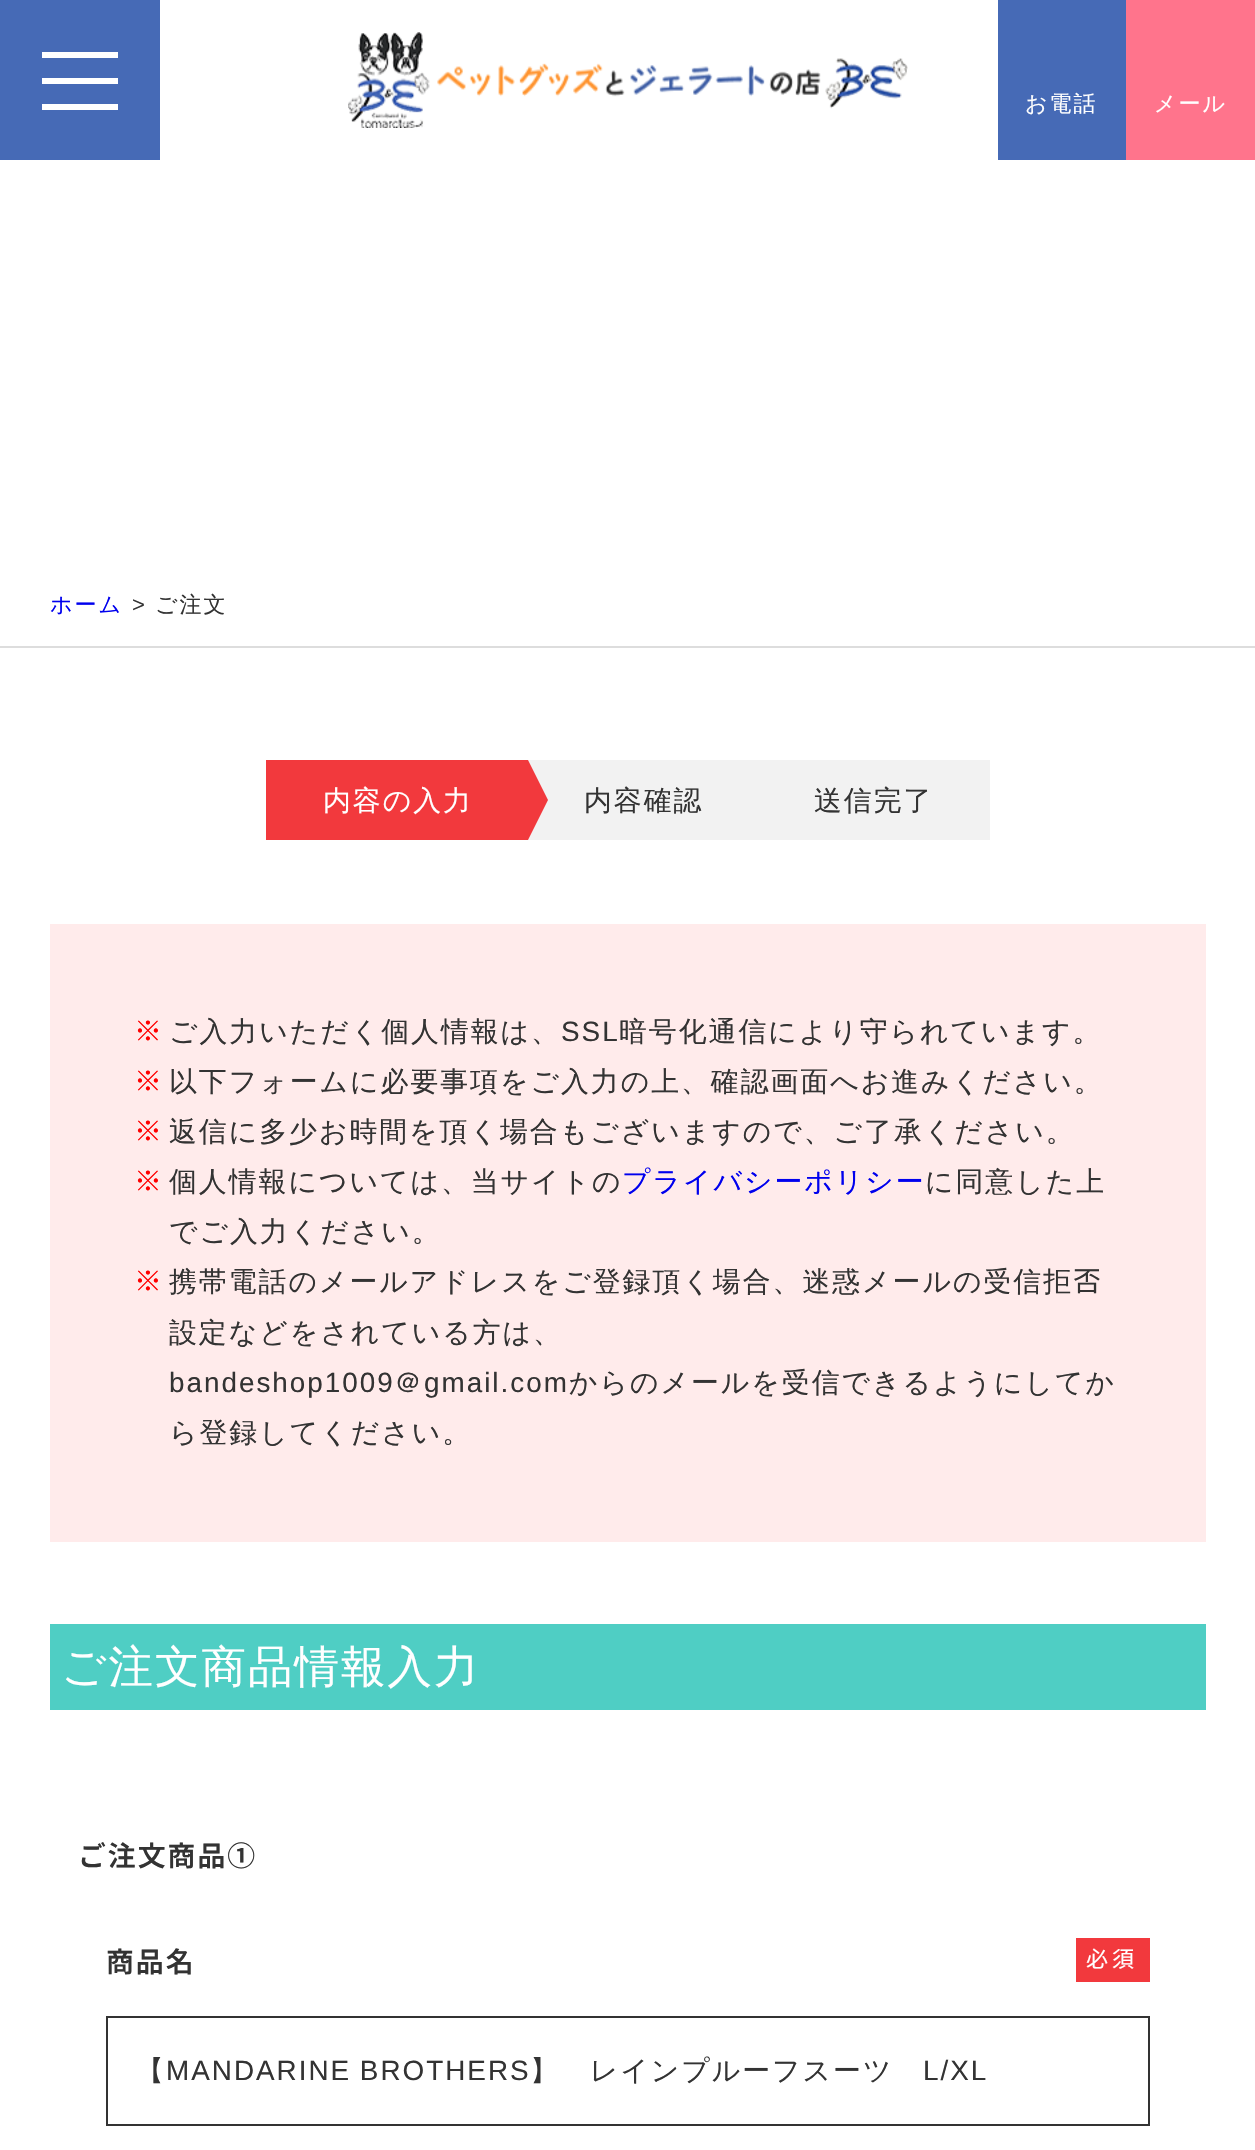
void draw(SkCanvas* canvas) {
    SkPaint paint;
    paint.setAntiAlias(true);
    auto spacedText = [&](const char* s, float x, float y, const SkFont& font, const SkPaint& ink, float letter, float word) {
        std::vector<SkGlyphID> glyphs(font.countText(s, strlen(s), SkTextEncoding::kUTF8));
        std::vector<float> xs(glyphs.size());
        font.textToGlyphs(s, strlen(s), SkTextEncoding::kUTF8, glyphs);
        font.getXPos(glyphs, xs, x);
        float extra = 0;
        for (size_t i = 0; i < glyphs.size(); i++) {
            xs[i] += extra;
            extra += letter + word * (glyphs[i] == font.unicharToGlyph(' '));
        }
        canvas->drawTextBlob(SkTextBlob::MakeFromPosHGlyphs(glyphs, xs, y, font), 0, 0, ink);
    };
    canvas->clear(0xFFFFFFFF);
    paint.setColor(0xFF466AB6);
    canvas->drawRect(SkRect::MakeXYWH(0, 0, 160, 160), paint);
    paint.setColor(0xFFFFFFFF);
    canvas->drawRect(SkRect::MakeXYWH(42, 52, 76, 6), paint);
    canvas->drawRect(SkRect::MakeXYWH(42, 78, 76, 6), paint);
    canvas->drawRect(SkRect::MakeXYWH(42, 104, 76, 6), paint);
    canvas->drawImageRect(SkImages::DeferredFromEncodedData(SkData::MakeFromFileName("img1.png")), SkRect::MakeXYWH(348, 32, 560, 96), SkSamplingOptions());
    paint.setColor(0xFF466AB6);
    canvas->drawRect(SkRect::MakeXYWH(998, 0, 128, 160), paint);
    SkFont font1(fontMgr->matchFamilyStyle("WenQuanYi Zen Hei", SkFontStyle(500, SkFontStyle::kNormal_Width, SkFontStyle::kUpright_Slant)), 22);
    font1.setSubpixel(true);
    paint.setColor(0xFFFFFFFF);
    spacedText("お電話", 1025, 111, font1, paint, 2, 0);
    paint.setColor(0xFFFF748C);
    canvas->drawRect(SkRect::MakeXYWH(1126, 0, 129, 160), paint);
    paint.setColor(0xFFFFFFFF);
    spacedText("メール", 1154, 111, font1, paint, 2, 0);
    paint.setColor(0xFFDDDDDD);
    canvas->drawRect(SkRect::MakeXYWH(0, 646, 1255, 2), paint);
    paint.setColor(0xFF0000EE);
    spacedText("ホーム", 50, 612, font1, paint, 2, 0);
    SkFont font2(fontMgr->matchFamilyStyle("Liberation Sans", SkFontStyle::Normal()), 22);
    font2.setSubpixel(true);
    paint.setColor(0xFF333333);
    spacedText(">", 132, 612, font2, paint, 2, 0);
    spacedText("ご注文", 155, 612, font1, paint, 2, 0);
    paint.setColor(0xFFF2393D);
    canvas->drawRect(SkRect::MakeXYWH(266, 760, 262, 80), paint);
    SkFont font3(fontMgr->matchFamilyStyle("WenQuanYi Zen Hei", SkFontStyle(500, SkFontStyle::kNormal_Width, SkFontStyle::kUpright_Slant)), 27.85f);
    font3.setSubpixel(true);
    paint.setColor(0xFFFFFFFF);
    spacedText("内容の入力", 323, 810, font3, paint, 2, 0);
    paint.setColor(0xFFF2F2F2);
    canvas->drawRect(SkRect::MakeXYWH(528, 760, 462, 80), paint);
    paint.setColor(0xFFF2393D);
    canvas->drawPath(SkPathBuilder().moveTo(528, 840).lineTo(528, 760).lineTo(548, 800).close().detach(), paint);
    paint.setColor(0xFF333333);
    spacedText("内容確認", 584, 810, font3, paint, 2, 0);
    spacedText("送信完了", 814, 810, font3, paint, 2, 0);
    paint.setColor(0xFFFFEBEB);
    canvas->drawRect(SkRect::MakeXYWH(50, 924, 1156, 618), paint);
    SkFont font4(fontMgr->matchFamilyStyle("Noto Sans JP", SkFontStyle::Normal()), 27.85f);
    font4.setSubpixel(true);
    paint.setColor(0xFFFF0000);
    spacedText("※", 134, 1041, font4, paint, 2, 0);
    paint.setColor(0xFF333333);
    spacedText("ご入力いただく個人情報は、", 169, 1041, font3, paint, 2, 0);
    SkFont font5(fontMgr->matchFamilyStyle("Liberation Sans", SkFontStyle::Normal()), 27.85f);
    font5.setSubpixel(true);
    spacedText("SSL", 561, 1041, font5, paint, 2, 0);
    spacedText("暗号化通信により守られています。", 619, 1041, font3, paint, 2, 0);
    paint.setColor(0xFFFF0000);
    spacedText("※", 134, 1091, font4, paint, 2, 0);
    paint.setColor(0xFF333333);
    spacedText("以下フォームに必要事項をご入力の上、確認画面へお進みください。", 169, 1091, font3, paint, 2, 0);
    paint.setColor(0xFFFF0000);
    spacedText("※", 134, 1141, font4, paint, 2, 0);
    paint.setColor(0xFF333333);
    spacedText("返信に多少お時間を頂く場合もございますので、ご了承ください。", 169, 1141, font3, paint, 2, 0);
    paint.setColor(0xFFFF0000);
    spacedText("※", 134, 1191, font4, paint, 2, 0);
    paint.setColor(0xFF333333);
    spacedText("個人情報については、当サイトの", 169, 1191, font3, paint, 2, 0);
    paint.setColor(0xFF0000EE);
    spacedText("プライバシーポリシー", 622, 1191, font3, paint, 2, 0);
    paint.setColor(0xFF333333);
    spacedText("に同意した上", 925, 1191, font3, paint, 2, 0);
    spacedText("でご入力ください。", 169, 1241, font3, paint, 2, 0);
    paint.setColor(0xFFFF0000);
    spacedText("※", 134, 1291, font4, paint, 2, 0);
    paint.setColor(0xFF333333);
    spacedText("携帯電話のメールアドレスをご登録頂く場合、迷惑メールの受信拒", 169, 1291, font3, paint, 2, 0);
    spacedText("否", 1073, 1291, font4, paint, 2, 0);
    spacedText("設定などをされている方は、", 169, 1342, font3, paint, 2, 0);
    spacedText("bandeshop1009", 169, 1392, font5, paint, 2, 0);
    spacedText("＠", 394, 1392, font3, paint, 2, 0);
    spacedText("gmail.com", 424, 1392, font5, paint, 2, 0);
    spacedText("からのメールを受信できるようにしてか", 569, 1392, font3, paint, 2, 0);
    spacedText("ら登録してください。", 169, 1442, font3, paint, 2, 0);
    paint.setColor(0xFF4FCEC4);
    canvas->drawRect(SkRect::MakeXYWH(50, 1624, 1156, 86), paint);
    SkFont font6(fontMgr->matchFamilyStyle("WenQuanYi Zen Hei", SkFontStyle(500, SkFontStyle::kNormal_Width, SkFontStyle::kUpright_Slant)), 44.5f);
    font6.setSubpixel(true);
    paint.setColor(0xFFFFFFFF);
    spacedText("ご注文商品情報入力", 61, 1682, font6, paint, 2, 0);
    SkFont font7(fontMgr->matchFamilyStyle("Noto Sans JP", SkFontStyle(600, SkFontStyle::kNormal_Width, SkFontStyle::kUpright_Slant)), 27.85f);
    font7.setSubpixel(true);
    paint.setColor(0xFF333333);
    spacedText("ご注文商品①", 78, 1866, font7, paint, 2, 0);
    spacedText("商品名", 106, 1972, font7, paint, 2, 0);
    paint.setColor(0xFFF2393D);
    canvas->drawRect(SkRect::MakeXYWH(1076, 1938, 74, 44), paint);
    SkFont font8(fontMgr->matchFamilyStyle("Noto Sans JP", SkFontStyle::Normal()), 22);
    font8.setSubpixel(true);
    paint.setColor(0xFFFFFFFF);
    spacedText("必須", 1086, 1967, font8, paint, 4, 0);
    paint.setStyle(SkPaint::kStroke_Style);
    paint.setStrokeWidth(2);
    paint.setColor(0xFF333333);
    canvas->drawRect(SkRect::MakeXYWH(107, 2017, 1042, 108), paint);
    paint.setStyle(SkPaint::kFill_Style);
    spacedText("【", 136, 2080, font3, paint, 2, 0);
    spacedText("MANDARINE BROTHERS", 166, 2080, font5, paint, 2, -1);
    spacedText("】　レインプルーフスーツ", 530, 2080, font3, paint, 2, 0);
    spacedText("L/XL", 923, 2080, font5, paint, 2, 0);
}
